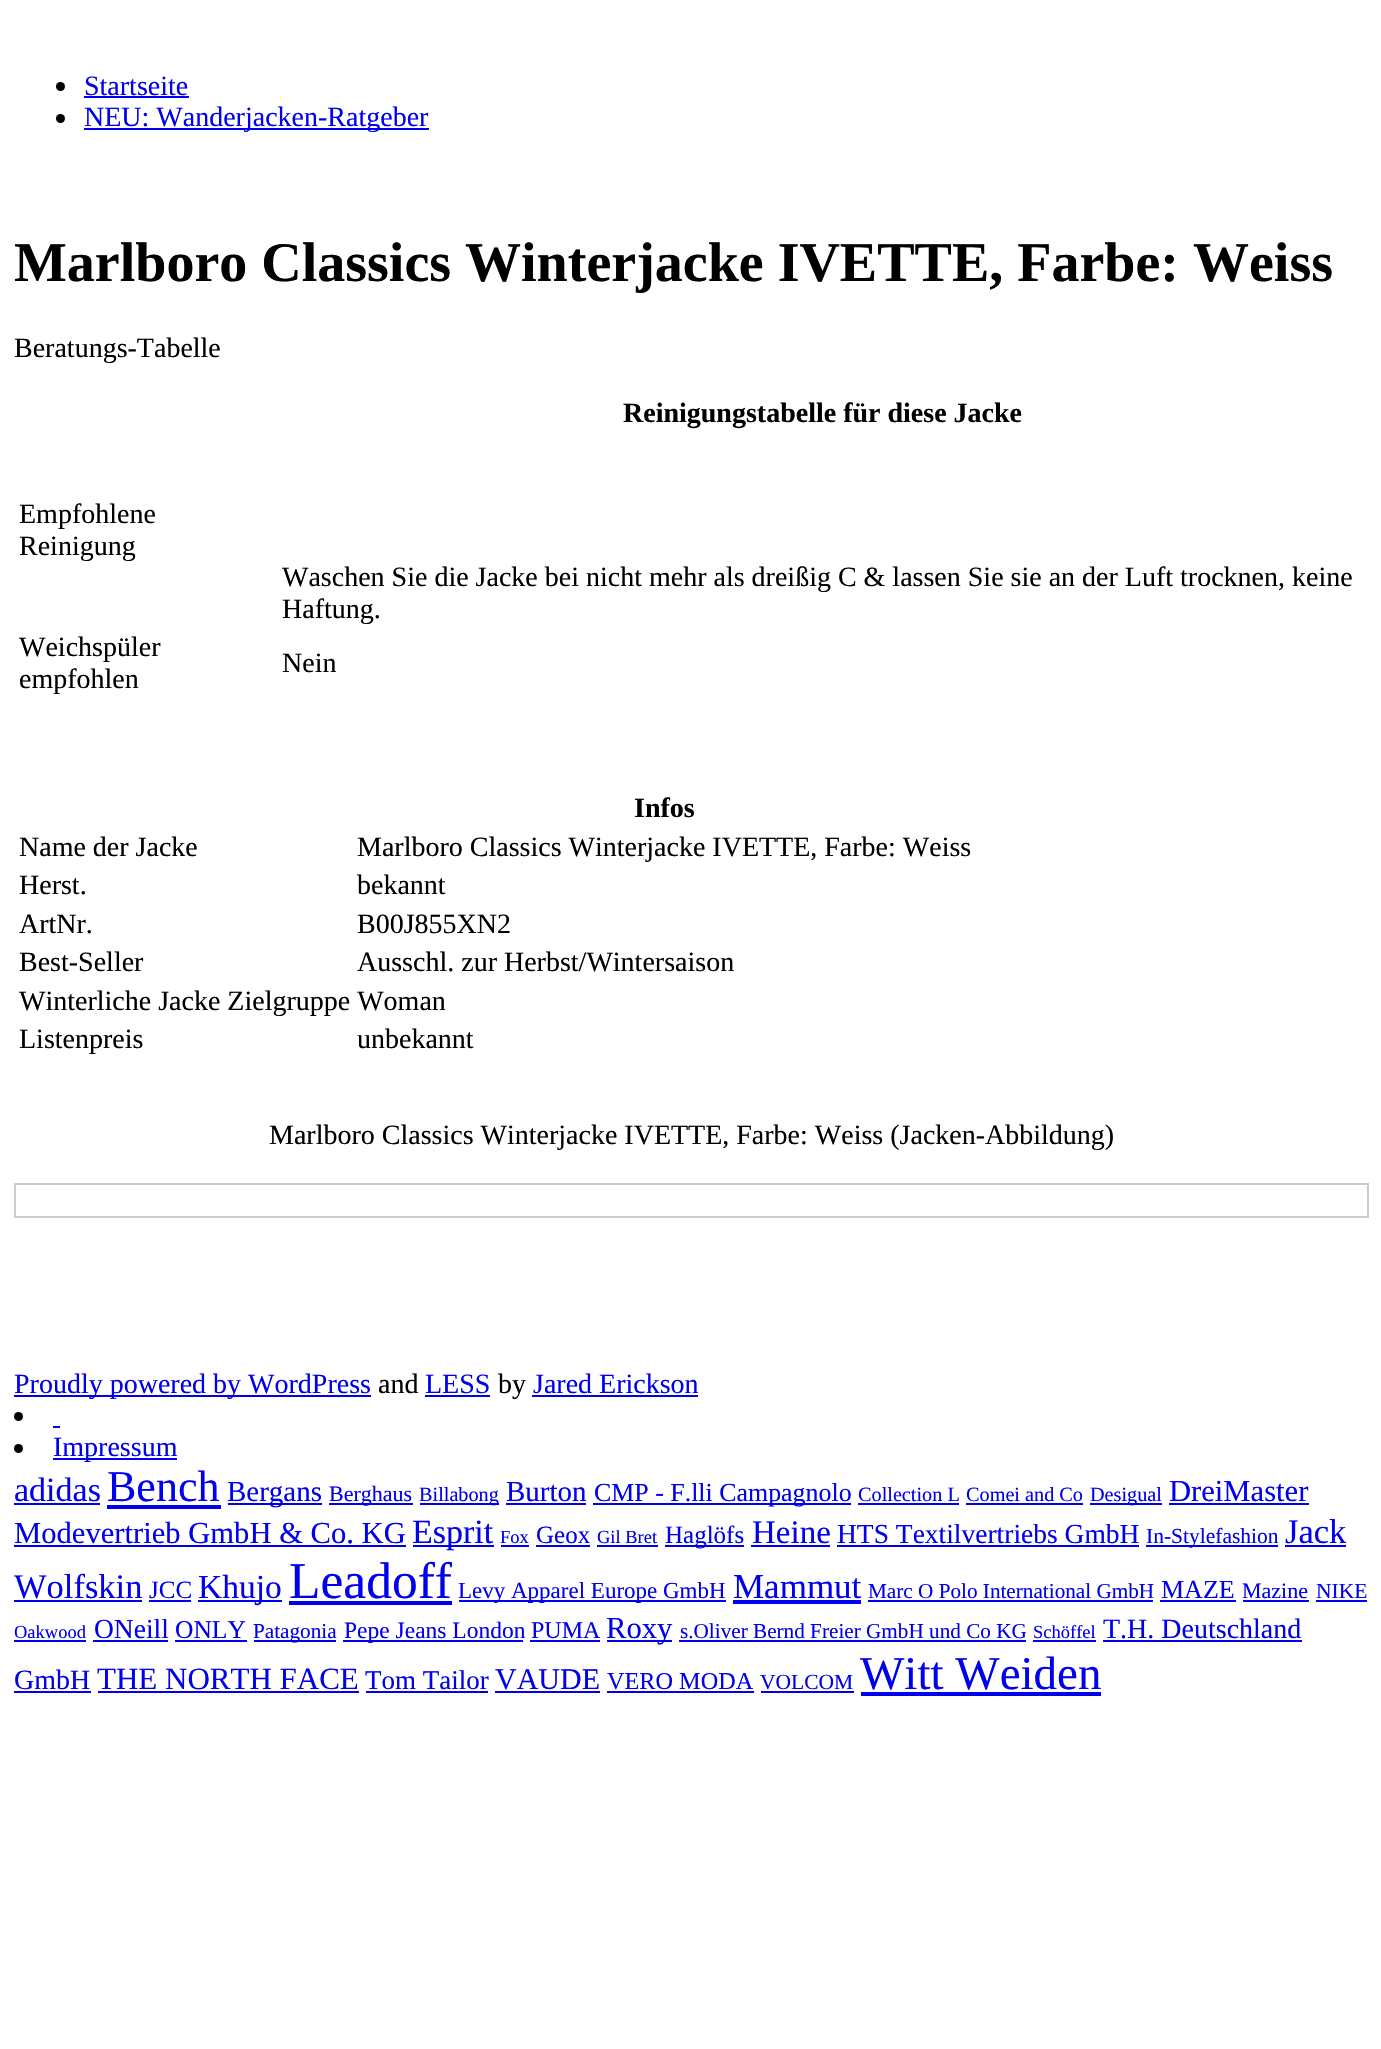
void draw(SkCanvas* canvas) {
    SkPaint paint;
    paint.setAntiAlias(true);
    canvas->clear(0xFFFFFFFF);
    paint.setColor(0xFF000000);
    canvas->drawCircle(60.5f, 86.5f, 4.5f, paint);
    SkFont font1(fontMgr->matchFamilyStyle("Liberation Serif", SkFontStyle::Normal()), 28);
    font1.setSubpixel(true);
    paint.setColor(0xFF0000EE);
    canvas->drawString("Startseite", 84, 95, font1, paint);
    canvas->drawRect(SkRect::MakeXYWH(84, 96, 105, 2), paint);
    paint.setColor(0xFF000000);
    canvas->drawCircle(60.5f, 118.5f, 4.5f, paint);
    paint.setColor(0xFF0000EE);
    canvas->drawRect(SkRect::MakeXYWH(84, 128, 345, 2), paint);
    canvas->drawString("NEU: Wanderjacken-Ratgeber", 84, 126, font1, paint);
    SkFont font2(fontMgr->matchFamilyStyle("Liberation Serif", SkFontStyle::Bold()), 56);
    font2.setSubpixel(true);
    paint.setColor(0xFF000000);
    canvas->drawString("Marlboro Classics Winterjacke IVETTE, Farbe: Weiss", 14, 281, font2, paint);
    canvas->drawString("Beratungs-Tabelle", 14, 357, font1, paint);
    SkFont font3(fontMgr->matchFamilyStyle("Liberation Serif", SkFontStyle::Bold()), 28);
    font3.setSubpixel(true);
    canvas->drawString("Reinigungstabelle für diese Jacke", 623, 422, font3, paint);
    canvas->drawString("Empfohlene", 19, 523, font1, paint);
    canvas->drawString("Reinigung", 19, 555, font1, paint);
    canvas->drawString("Waschen Sie die Jacke bei nicht mehr als dreißig C & lassen Sie sie an der Luft trocknen, keine", 282, 586, font1, paint);
    canvas->drawString("Haftung.", 282, 618, font1, paint);
    canvas->drawString("Weichspüler", 19, 656, font1, paint);
    canvas->drawString("empfohlen", 19, 688, font1, paint);
    canvas->drawString("Nein", 282, 672, font1, paint);
    canvas->drawString("Infos", 634, 817, font3, paint);
    canvas->drawString("Name der Jacke", 19, 856, font1, paint);
    canvas->drawString("Marlboro Classics Winterjacke IVETTE, Farbe: Weiss", 357, 856, font1, paint);
    canvas->drawString("Herst.", 19, 894, font1, paint);
    canvas->drawString("bekannt", 357, 894, font1, paint);
    canvas->drawString("ArtNr.", 19, 933, font1, paint);
    canvas->drawString("B00J855XN2", 357, 933, font1, paint);
    canvas->drawString("Best-Seller", 19, 971, font1, paint);
    canvas->drawString("Ausschl. zur Herbst/Wintersaison", 357, 971, font1, paint);
    canvas->drawString("Winterliche Jacke Zielgruppe Woman", 19, 1010, font1, paint);
    canvas->drawString("Listenpreis", 19, 1048, font1, paint);
    canvas->drawString("unbekannt", 357, 1048, font1, paint);
    canvas->drawString("Marlboro Classics Winterjacke IVETTE, Farbe: Weiss (Jacken-Abbildung)", 269, 1144, font1, paint);
    paint.setStyle(SkPaint::kStroke_Style);
    paint.setStrokeWidth(2);
    paint.setColor(0xFFCCCCCC);
    canvas->drawRect(SkRect::MakeXYWH(15, 1184, 1353, 33), paint);
    paint.setStyle(SkPaint::kFill_Style);
    paint.setColor(0xFF0000EE);
    canvas->drawRect(SkRect::MakeXYWH(14, 1395, 357, 2), paint);
    canvas->drawString("Proudly powered by WordPress", 14, 1393, font1, paint);
    paint.setColor(0xFF000000);
    canvas->drawString("and", 378, 1393, font1, paint);
    paint.setColor(0xFF0000EE);
    canvas->drawString("LESS", 425, 1393, font1, paint);
    canvas->drawRect(SkRect::MakeXYWH(425, 1395, 65, 2), paint);
    paint.setColor(0xFF000000);
    canvas->drawString("by", 498, 1393, font1, paint);
    paint.setColor(0xFF0000EE);
    canvas->drawString("Jared Erickson", 533, 1393, font1, paint);
    canvas->drawRect(SkRect::MakeXYWH(532, 1395, 166, 2), paint);
    paint.setColor(0xFF000000);
    canvas->drawCircle(18.5f, 1416.5f, 4.5f, paint);
    paint.setColor(0xFF0000EE);
    canvas->drawRect(SkRect::MakeXYWH(53, 1426, 7, 2), paint);
    paint.setColor(0xFF000000);
    canvas->drawCircle(18.5f, 1448.5f, 4.5f, paint);
    paint.setColor(0xFF0000EE);
    canvas->drawRect(SkRect::MakeXYWH(53, 1458, 124, 2), paint);
    canvas->drawString("Impressum", 53, 1456, font1, paint);
    SkFont font4(fontMgr->matchFamilyStyle("Liberation Serif", SkFontStyle::Normal()), 34);
    font4.setSubpixel(true);
    canvas->drawString("adidas", 14, 1501, font4, paint);
    canvas->drawRect(SkRect::MakeXYWH(14, 1503, 86, 2), paint);
    SkFont font5(fontMgr->matchFamilyStyle("Liberation Serif", SkFontStyle::Normal()), 44);
    font5.setSubpixel(true);
    canvas->drawString("Bench", 107, 1501, font5, paint);
    canvas->drawRect(SkRect::MakeXYWH(107, 1505, 114, 4), paint);
    canvas->drawRect(SkRect::MakeXYWH(228, 1503, 94, 2), paint);
    SkFont font6(fontMgr->matchFamilyStyle("Liberation Serif", SkFontStyle::Normal()), 29);
    font6.setSubpixel(true);
    canvas->drawString("Bergans", 227, 1501, font6, paint);
    canvas->drawRect(SkRect::MakeXYWH(329, 1503, 84, 2), paint);
    SkFont font7(fontMgr->matchFamilyStyle("Liberation Serif", SkFontStyle::Normal()), 22);
    font7.setSubpixel(true);
    canvas->drawString("Berghaus", 329, 1501, font7, paint);
    canvas->drawRect(SkRect::MakeXYWH(420, 1503, 79, 2), paint);
    SkFont font8(fontMgr->matchFamilyStyle("Liberation Serif", SkFontStyle::Normal()), 20.25f);
    font8.setSubpixel(true);
    canvas->drawString("Billabong", 419, 1501, font8, paint);
    canvas->drawString("Burton", 506, 1501, font6, paint);
    canvas->drawRect(SkRect::MakeXYWH(506, 1503, 80, 2), paint);
    canvas->drawRect(SkRect::MakeXYWH(593, 1503, 258, 2), paint);
    SkFont font9(fontMgr->matchFamilyStyle("Liberation Serif", SkFontStyle::Normal()), 25.9f);
    font9.setSubpixel(true);
    canvas->drawString("CMP - F.lli Campagnolo", 594, 1501, font9, paint);
    canvas->drawString("Collection L", 858, 1501, font8, paint);
    canvas->drawRect(SkRect::MakeXYWH(858, 1503, 101, 2), paint);
    canvas->drawString("Comei and Co", 966, 1501, font8, paint);
    canvas->drawRect(SkRect::MakeXYWH(966, 1503, 117, 2), paint);
    canvas->drawRect(SkRect::MakeXYWH(1090, 1503, 72, 2), paint);
    canvas->drawString("Desigual", 1090, 1501, font8, paint);
    SkFont font10(fontMgr->matchFamilyStyle("Liberation Serif", SkFontStyle::Normal()), 30.6f);
    font10.setSubpixel(true);
    canvas->drawString("DreiMaster", 1169, 1501, font10, paint);
    canvas->drawRect(SkRect::MakeXYWH(1169, 1503, 140, 2), paint);
    canvas->drawString("Modevertrieb GmbH & Co. KG", 14, 1543, font10, paint);
    canvas->drawRect(SkRect::MakeXYWH(14, 1545, 392, 2), paint);
    canvas->drawRect(SkRect::MakeXYWH(413, 1545, 81, 2), paint);
    canvas->drawString("Esprit", 412, 1543, font4, paint);
    SkFont font11(fontMgr->matchFamilyStyle("Liberation Serif", SkFontStyle::Normal()), 18.5f);
    font11.setSubpixel(true);
    canvas->drawString("Fox", 500, 1543, font11, paint);
    canvas->drawRect(SkRect::MakeXYWH(501, 1545, 28, 2), paint);
    SkFont font12(fontMgr->matchFamilyStyle("Liberation Serif", SkFontStyle::Normal()), 25);
    font12.setSubpixel(true);
    canvas->drawString("Geox", 536, 1543, font12, paint);
    canvas->drawRect(SkRect::MakeXYWH(536, 1545, 54, 2), paint);
    canvas->drawString("Gil Bret", 597, 1543, font11, paint);
    canvas->drawRect(SkRect::MakeXYWH(597, 1545, 61, 2), paint);
    canvas->drawRect(SkRect::MakeXYWH(665, 1545, 79, 2), paint);
    canvas->drawString("Haglöfs", 665, 1543, font12, paint);
    SkFont font13(fontMgr->matchFamilyStyle("Liberation Serif", SkFontStyle::Normal()), 33);
    font13.setSubpixel(true);
    canvas->drawString("Heine", 752, 1543, font13, paint);
    canvas->drawRect(SkRect::MakeXYWH(751, 1545, 79, 2), paint);
    SkFont font14(fontMgr->matchFamilyStyle("Liberation Serif", SkFontStyle::Normal()), 27.5f);
    font14.setSubpixel(true);
    canvas->drawString("HTS Textilvertriebs GmbH", 837, 1543, font14, paint);
    canvas->drawRect(SkRect::MakeXYWH(837, 1545, 302, 2), paint);
    canvas->drawRect(SkRect::MakeXYWH(1146, 1545, 132, 2), paint);
    SkFont font15(fontMgr->matchFamilyStyle("Liberation Serif", SkFontStyle::Normal()), 21.5f);
    font15.setSubpixel(true);
    canvas->drawString("In-Stylefashion", 1146, 1543, font15, paint);
    SkFont font16(fontMgr->matchFamilyStyle("Liberation Serif", SkFontStyle::Normal()), 34.5f);
    font16.setSubpixel(true);
    canvas->drawString("Jack", 1285, 1543, font16, paint);
    canvas->drawRect(SkRect::MakeXYWH(1285, 1545, 61, 2), paint);
    canvas->drawString("Wolfskin", 14, 1598, font16, paint);
    canvas->drawRect(SkRect::MakeXYWH(14, 1600, 128, 2), paint);
    canvas->drawString("JCC", 149, 1598, font12, paint);
    canvas->drawRect(SkRect::MakeXYWH(149, 1600, 42, 2), paint);
    canvas->drawRect(SkRect::MakeXYWH(198, 1600, 84, 2), paint);
    SkFont font17(fontMgr->matchFamilyStyle("Liberation Serif", SkFontStyle::Normal()), 33.5f);
    font17.setSubpixel(true);
    canvas->drawString("Khujo", 198, 1598, font17, paint);
    SkFont font18(fontMgr->matchFamilyStyle("Liberation Serif", SkFontStyle::Normal()), 51.5f);
    font18.setSubpixel(true);
    canvas->drawString("Leadoff", 289, 1598, font18, paint);
    canvas->drawRect(SkRect::MakeXYWH(289, 1601, 163, 4), paint);
    canvas->drawRect(SkRect::MakeXYWH(459, 1600, 267, 2), paint);
    SkFont font19(fontMgr->matchFamilyStyle("Liberation Serif", SkFontStyle::Normal()), 23);
    font19.setSubpixel(true);
    canvas->drawString("Levy Apparel Europe GmbH", 458, 1598, font19, paint);
    SkFont font20(fontMgr->matchFamilyStyle("Liberation Serif", SkFontStyle::Normal()), 35);
    font20.setSubpixel(true);
    canvas->drawString("Mammut", 733, 1598, font20, paint);
    canvas->drawRect(SkRect::MakeXYWH(733, 1600, 128, 4), paint);
    SkFont font21(fontMgr->matchFamilyStyle("Liberation Serif", SkFontStyle::Normal()), 21.2f);
    font21.setSubpixel(true);
    canvas->drawString("Marc O Polo International GmbH", 868, 1598, font21, paint);
    canvas->drawRect(SkRect::MakeXYWH(868, 1600, 285, 2), paint);
    SkFont font22(fontMgr->matchFamilyStyle("Liberation Serif", SkFontStyle::Normal()), 26);
    font22.setSubpixel(true);
    canvas->drawString("MAZE", 1161, 1598, font22, paint);
    canvas->drawRect(SkRect::MakeXYWH(1160, 1600, 76, 2), paint);
    canvas->drawString("Mazine", 1242, 1598, font7, paint);
    canvas->drawRect(SkRect::MakeXYWH(1243, 1600, 66, 2), paint);
    canvas->drawString("NIKE", 1316, 1598, font15, paint);
    canvas->drawRect(SkRect::MakeXYWH(1316, 1600, 51, 2), paint);
    canvas->drawString("Oakwood", 14, 1638, font11, paint);
    canvas->drawRect(SkRect::MakeXYWH(14, 1640, 72, 2), paint);
    canvas->drawString("ONeill", 94, 1638, font14, paint);
    canvas->drawRect(SkRect::MakeXYWH(93, 1640, 75, 2), paint);
    SkFont font23(fontMgr->matchFamilyStyle("Liberation Serif", SkFontStyle::Normal()), 25.5f);
    font23.setSubpixel(true);
    canvas->drawString("ONLY", 175, 1638, font23, paint);
    canvas->drawRect(SkRect::MakeXYWH(175, 1640, 72, 2), paint);
    canvas->drawRect(SkRect::MakeXYWH(254, 1640, 82, 2), paint);
    canvas->drawString("Patagonia", 253, 1638, font21, paint);
    canvas->drawRect(SkRect::MakeXYWH(343, 1640, 180, 2), paint);
    SkFont font24(fontMgr->matchFamilyStyle("Liberation Serif", SkFontStyle::Normal()), 23.5f);
    font24.setSubpixel(true);
    canvas->drawString("Pepe Jeans London", 344, 1638, font24, paint);
    SkFont font25(fontMgr->matchFamilyStyle("Liberation Serif", SkFontStyle::Normal()), 24);
    font25.setSubpixel(true);
    canvas->drawString("PUMA", 531, 1638, font25, paint);
    canvas->drawRect(SkRect::MakeXYWH(530, 1640, 70, 2), paint);
    canvas->drawRect(SkRect::MakeXYWH(607, 1640, 65, 2), paint);
    canvas->drawString("Roxy", 606, 1638, font10, paint);
    canvas->drawString("s.Oliver Bernd Freier GmbH und Co KG", 680, 1638, font21, paint);
    canvas->drawRect(SkRect::MakeXYWH(679, 1640, 347, 2), paint);
    canvas->drawString("Schöffel", 1033, 1638, font11, paint);
    canvas->drawRect(SkRect::MakeXYWH(1033, 1640, 63, 2), paint);
    canvas->drawString("T.H. Deutschland", 1103, 1638, font1, paint);
    canvas->drawRect(SkRect::MakeXYWH(1103, 1640, 199, 2), paint);
    canvas->drawString("GmbH", 14, 1689, font1, paint);
    canvas->drawRect(SkRect::MakeXYWH(14, 1691, 77, 2), paint);
    SkFont font26(fontMgr->matchFamilyStyle("Liberation Serif", SkFontStyle::Normal()), 31);
    font26.setSubpixel(true);
    canvas->drawString("THE NORTH FACE", 97, 1689, font26, paint);
    canvas->drawRect(SkRect::MakeXYWH(98, 1691, 261, 2), paint);
    SkFont font27(fontMgr->matchFamilyStyle("Liberation Serif", SkFontStyle::Normal()), 27);
    font27.setSubpixel(true);
    canvas->drawString("Tom Tailor", 365, 1689, font27, paint);
    canvas->drawRect(SkRect::MakeXYWH(366, 1691, 122, 2), paint);
    SkFont font28(fontMgr->matchFamilyStyle("Liberation Serif", SkFontStyle::Normal()), 30);
    font28.setSubpixel(true);
    canvas->drawString("VAUDE", 495, 1689, font28, paint);
    canvas->drawRect(SkRect::MakeXYWH(495, 1691, 105, 2), paint);
    SkFont font29(fontMgr->matchFamilyStyle("Liberation Serif", SkFontStyle::Normal()), 24.25f);
    font29.setSubpixel(true);
    canvas->drawString("VERO MODA", 607, 1689, font29, paint);
    canvas->drawRect(SkRect::MakeXYWH(607, 1691, 147, 2), paint);
    canvas->drawString("VOLCOM", 760, 1689, font15, paint);
    canvas->drawRect(SkRect::MakeXYWH(761, 1691, 93, 2), paint);
    SkFont font30(fontMgr->matchFamilyStyle("Liberation Serif", SkFontStyle::Normal()), 47);
    font30.setSubpixel(true);
    canvas->drawString("Witt Weiden", 860, 1689, font30, paint);
    canvas->drawRect(SkRect::MakeXYWH(861, 1692, 240, 4), paint);
}
